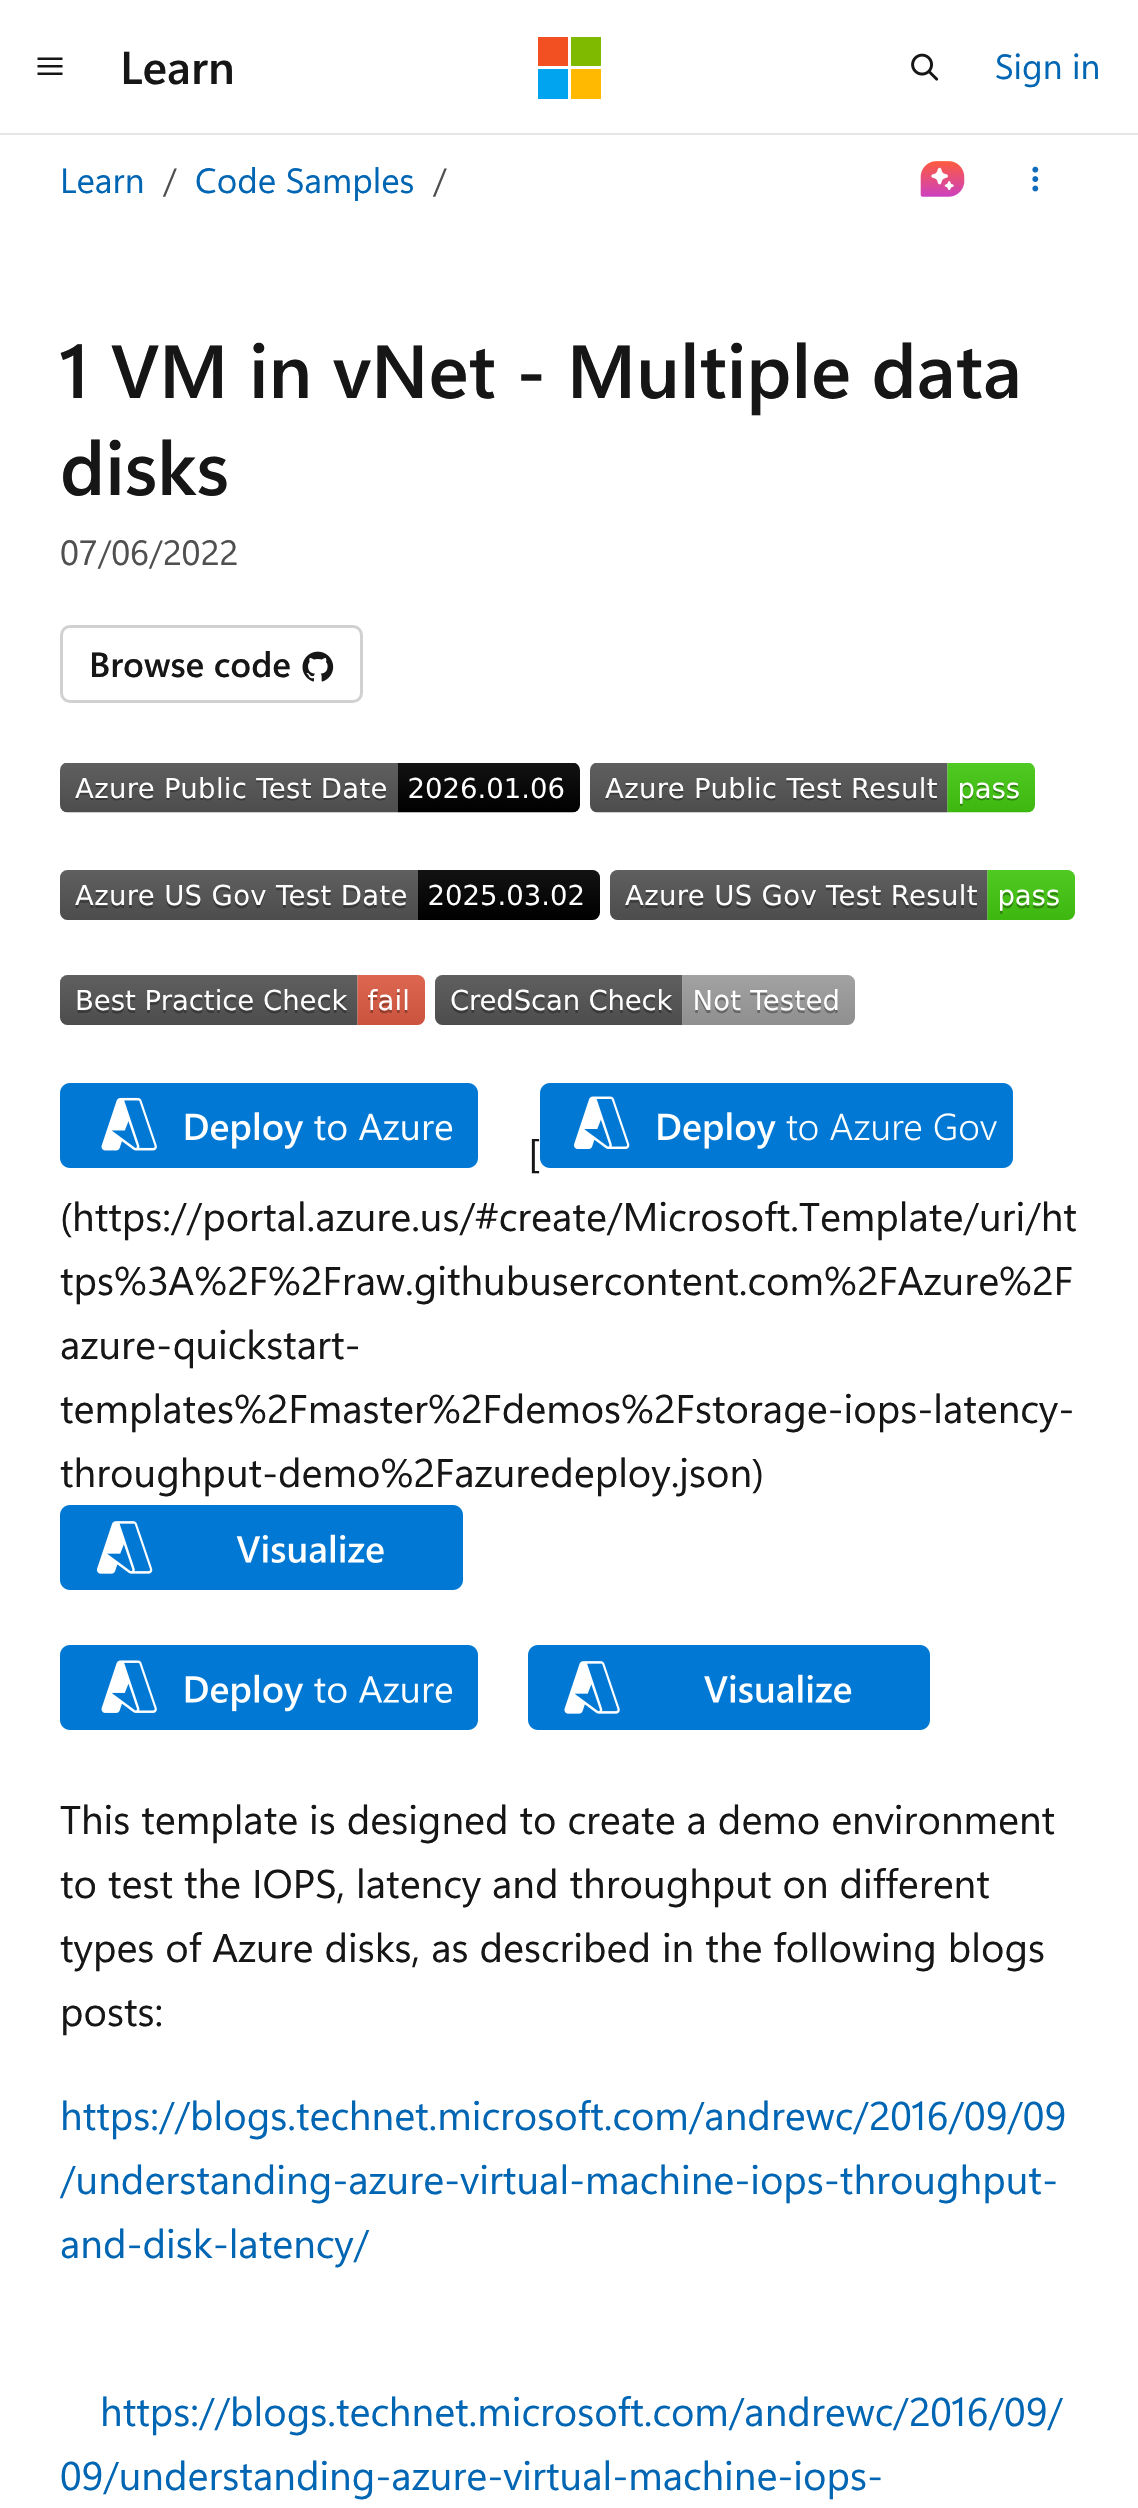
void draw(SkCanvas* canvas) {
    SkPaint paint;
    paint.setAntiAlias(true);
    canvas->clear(0xFFFFFFFF);
    paint.setColor(0xFFE6E6E6);
    canvas->drawRect(SkRect::MakeXYWH(0, 133, 1138, 2), paint);
    canvas->drawImageRect(SkImages::DeferredFromEncodedData(SkData::MakeFromFileName("img1.png")), SkRect::MakeXYWH(37, 57, 26, 18), SkSamplingOptions());
    SkFont font1(fontMgr->matchFamilyStyle("Segoe UI", SkFontStyle(600, SkFontStyle::kNormal_Width, SkFontStyle::kUpright_Slant)), 46);
    font1.setSubpixel(true);
    paint.setColor(0xFF161616);
    canvas->drawString("Learn", 120, 84, font1, paint);
    paint.setColor(0xFFF25022);
    canvas->drawRect(SkRect::MakeXYWH(538, 37, 30, 29), paint);
    paint.setColor(0xFF7FBA00);
    canvas->drawRect(SkRect::MakeXYWH(571, 37, 30, 29), paint);
    paint.setColor(0xFF00A4EF);
    canvas->drawRect(SkRect::MakeXYWH(538, 69, 30, 30), paint);
    paint.setColor(0xFFFFB900);
    canvas->drawRect(SkRect::MakeXYWH(571, 69, 30, 30), paint);
    canvas->drawImageRect(SkImages::DeferredFromEncodedData(SkData::MakeFromFileName("img2.png")), SkRect::MakeXYWH(911, 53, 28, 28), SkSamplingOptions());
    SkFont font2(fontMgr->matchFamilyStyle("Segoe UI", SkFontStyle::Normal()), 35);
    font2.setSubpixel(true);
    paint.setColor(0xFF0065B3);
    canvas->drawString("Sign in", 995, 79, font2, paint);
    canvas->drawString("Learn", 60, 193, font2, paint);
    paint.setColor(0xFF505050);
    canvas->drawString("/", 163, 193, font2, paint);
    paint.setColor(0xFF0065B3);
    canvas->drawString("Code Samples", 195, 193, font2, paint);
    paint.setColor(0xFF505050);
    canvas->drawString("/", 433, 193, font2, paint);
    canvas->drawImageRect(SkImages::DeferredFromEncodedData(SkData::MakeFromFileName("img3.png")), SkRect::MakeXYWH(920, 161, 45, 36), SkSamplingOptions());
    canvas->drawImageRect(SkImages::DeferredFromEncodedData(SkData::MakeFromFileName("img4.png")), SkRect::MakeXYWH(1032, 166, 7, 26), SkSamplingOptions());
    SkFont font3(fontMgr->matchFamilyStyle("Segoe UI", SkFontStyle(600, SkFontStyle::kNormal_Width, SkFontStyle::kUpright_Slant)), 75);
    font3.setSubpixel(true);
    paint.setColor(0xFF161616);
    canvas->drawString("1 VM in vNet - Multiple data", 60, 398, font3, paint);
    canvas->drawString("disks", 60, 495, font3, paint);
    paint.setColor(0xFF505050);
    canvas->drawString("07/06/2022", 60, 565, font2, paint);
    paint.setStyle(SkPaint::kStroke_Style);
    paint.setStrokeWidth(3);
    paint.setColor(0xFFD1D1D1);
    canvas->drawRoundRect(SkRect::MakeXYWH(61.5f, 626.5f, 300, 75), 8.5f, 8.5f, paint);
    SkFont font4(fontMgr->matchFamilyStyle("Segoe UI", SkFontStyle(600, SkFontStyle::kNormal_Width, SkFontStyle::kUpright_Slant)), 35);
    font4.setSubpixel(true);
    paint.setStyle(SkPaint::kFill_Style);
    paint.setColor(0xFF161616);
    canvas->drawString("Browse code", 89, 677, font4, paint);
    canvas->drawImageRect(SkImages::DeferredFromEncodedData(SkData::MakeFromFileName("img5.png")), SkRect::MakeXYWH(302, 651, 32, 31), SkSamplingOptions());
    canvas->drawImageRect(SkImages::DeferredFromEncodedData(SkData::MakeFromFileName("img6.png")), SkRect::MakeXYWH(60, 763, 520, 50), SkSamplingOptions());
    canvas->drawImageRect(SkImages::DeferredFromEncodedData(SkData::MakeFromFileName("img7.png")), SkRect::MakeXYWH(590, 763, 445, 50), SkSamplingOptions());
    canvas->drawImageRect(SkImages::DeferredFromEncodedData(SkData::MakeFromFileName("img8.png")), SkRect::MakeXYWH(60, 870, 540, 50), SkSamplingOptions());
    canvas->drawImageRect(SkImages::DeferredFromEncodedData(SkData::MakeFromFileName("img9.png")), SkRect::MakeXYWH(610, 870, 465, 50), SkSamplingOptions());
    canvas->drawImageRect(SkImages::DeferredFromEncodedData(SkData::MakeFromFileName("img10.png")), SkRect::MakeXYWH(60, 975, 365, 50), SkSamplingOptions());
    canvas->drawImageRect(SkImages::DeferredFromEncodedData(SkData::MakeFromFileName("img11.png")), SkRect::MakeXYWH(435, 975, 420, 50), SkSamplingOptions());
    canvas->drawImageRect(SkImages::DeferredFromEncodedData(SkData::MakeFromFileName("img12.png")), SkRect::MakeXYWH(60, 1083, 418, 85), SkSamplingOptions());
    SkFont font5(fontMgr->matchFamilyStyle("Segoe UI", SkFontStyle::Normal()), 40);
    font5.setSubpixel(true);
    canvas->drawString("[", 528, 1167, font5, paint);
    canvas->drawImageRect(SkImages::DeferredFromEncodedData(SkData::MakeFromFileName("img13.png")), SkRect::MakeXYWH(540, 1083, 473, 85), SkSamplingOptions());
    canvas->drawString("(https://portal.azure.us/#create/Microsoft.Template/uri/ht", 60, 1231, font5, paint);
    canvas->drawString("tps%3A%2F%2Fraw.githubusercontent.com%2FAzure%2F", 60, 1295, font5, paint);
    canvas->drawString("azure-quickstart-", 60, 1359, font5, paint);
    canvas->drawString("templates%2Fmaster%2Fdemos%2Fstorage-iops-latency-", 60, 1423, font5, paint);
    canvas->drawString("throughput-demo%2Fazuredeploy.json)", 60, 1487, font5, paint);
    canvas->drawImageRect(SkImages::DeferredFromEncodedData(SkData::MakeFromFileName("img14.png")), SkRect::MakeXYWH(60, 1505, 403, 85), SkSamplingOptions());
    canvas->drawImageRect(SkImages::DeferredFromEncodedData(SkData::MakeFromFileName("img15.png")), SkRect::MakeXYWH(60, 1645, 418, 85), SkSamplingOptions());
    canvas->drawImageRect(SkImages::DeferredFromEncodedData(SkData::MakeFromFileName("img16.png")), SkRect::MakeXYWH(528, 1645, 402, 85), SkSamplingOptions());
    canvas->drawString("This template is designed to create a demo environment", 60, 1834, font5, paint);
    canvas->drawString("to test the IOPS, latency and throughput on different", 60, 1898, font5, paint);
    canvas->drawString("types of Azure disks, as described in the following blogs", 60, 1962, font5, paint);
    canvas->drawString("posts:", 60, 2026, font5, paint);
    paint.setColor(0xFF0065B3);
    canvas->drawString("https://blogs.technet.microsoft.com/andrewc/2016/09/09", 60, 2130, font5, paint);
    canvas->drawString("/understanding-azure-virtual-machine-iops-throughput-", 60, 2194, font5, paint);
    canvas->drawString("and-disk-latency/", 60, 2258, font5, paint);
    canvas->drawString("https://blogs.technet.microsoft.com/andrewc/2016/09/", 100, 2426, font5, paint);
    canvas->drawString("09/understanding-azure-virtual-machine-iops-", 60, 2490, font5, paint);
}
